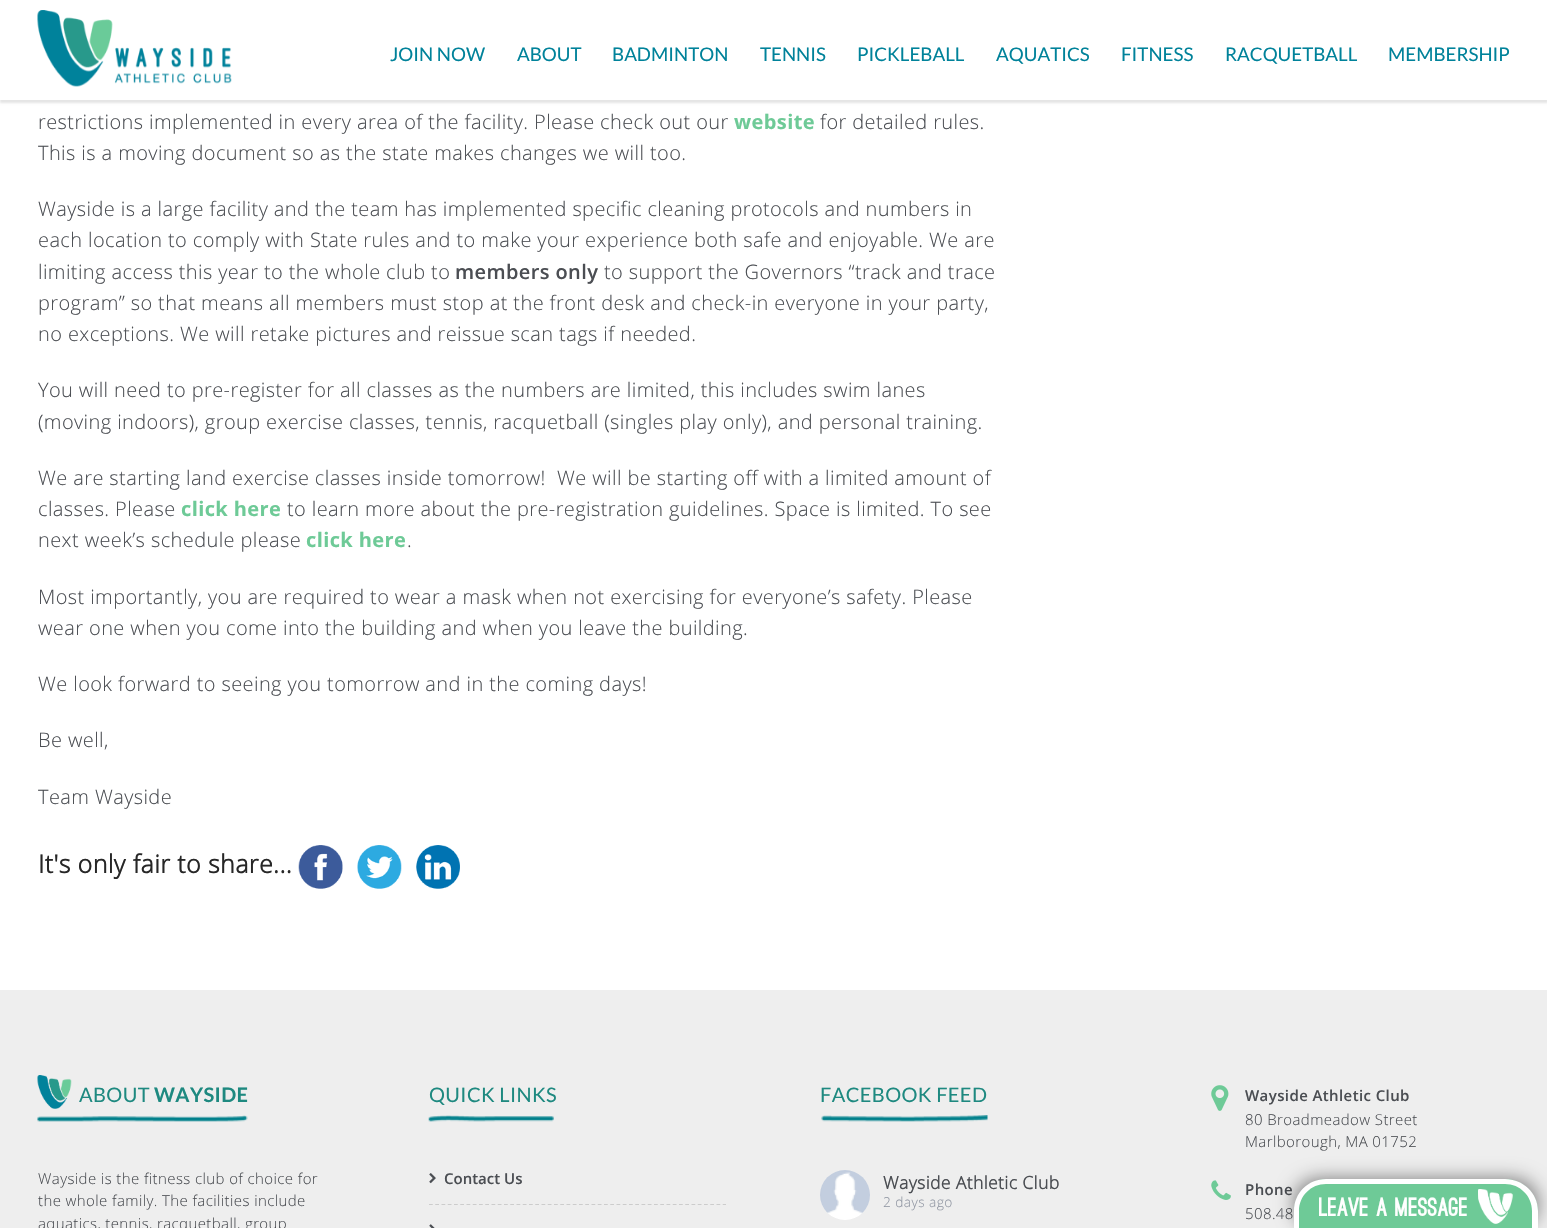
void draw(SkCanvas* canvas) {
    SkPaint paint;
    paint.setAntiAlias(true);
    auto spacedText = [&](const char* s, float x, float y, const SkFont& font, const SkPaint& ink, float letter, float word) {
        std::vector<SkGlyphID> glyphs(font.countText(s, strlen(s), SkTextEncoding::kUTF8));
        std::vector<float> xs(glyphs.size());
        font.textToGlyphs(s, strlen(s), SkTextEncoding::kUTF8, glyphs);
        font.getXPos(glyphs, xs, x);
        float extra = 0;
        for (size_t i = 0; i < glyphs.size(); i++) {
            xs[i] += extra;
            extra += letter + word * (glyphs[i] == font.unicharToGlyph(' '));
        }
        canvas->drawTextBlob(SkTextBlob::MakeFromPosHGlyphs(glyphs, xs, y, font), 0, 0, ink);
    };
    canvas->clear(0xFFFFFFFF);
    paint.setColor(0x1A000000);
    paint.setMaskFilter(SkMaskFilter::MakeBlur(kNormal_SkBlurStyle, 1));
    canvas->drawRect(SkRect::MakeXYWH(0, -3, 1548, 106), paint);
    paint.setMaskFilter(nullptr);
    paint.setColor(0xFFFFFFFF);
    canvas->drawRect(SkRect::MakeXYWH(0, 0, 1547, 100), paint);
    canvas->drawImageRect(SkImages::DeferredFromEncodedData(SkData::MakeFromFileName("img1.png")), SkRect::MakeXYWH(37, 10, 195, 77), SkSamplingOptions());
    SkFont font1(fontMgr->matchFamilyStyle("Lato", SkFontStyle::Normal()), 18.75f);
    font1.setSubpixel(true);
    paint.setColor(0xFF00829A);
    canvas->drawString("JOIN NOW", 390, 61, font1, paint);
    canvas->drawString("ABOUT", 517, 61, font1, paint);
    canvas->drawString("BADMINTON", 612, 61, font1, paint);
    canvas->drawString("TENNIS", 760, 61, font1, paint);
    canvas->drawString("PICKLEBALL", 857, 61, font1, paint);
    canvas->drawString("AQUATICS", 996, 61, font1, paint);
    canvas->drawString("FITNESS", 1121, 61, font1, paint);
    canvas->drawString("RACQUETBALL", 1225, 61, font1, paint);
    canvas->drawString("MEMBERSHIP", 1388, 61, font1, paint);
    SkFont font2(fontMgr->matchFamilyStyle("Open Sans", SkFontStyle(300, SkFontStyle::kNormal_Width, SkFontStyle::kUpright_Slant)), 20);
    font2.setSubpixel(true);
    paint.setColor(0xFF4B4E53);
    spacedText("restrictions implemented in every area of the facility. Please check out our", 38, 129, font2, paint, 0.4f, 0);
    SkFont font3(fontMgr->matchFamilyStyle("Open Sans", SkFontStyle::Bold()), 20);
    font3.setSubpixel(true);
    paint.setColor(0xFF6ECA97);
    spacedText("website", 734, 129, font3, paint, 0.4f, 0);
    paint.setColor(0xFF4B4E53);
    spacedText("for detailed rules.", 820, 129, font2, paint, 0.4f, 0);
    spacedText("This is a moving document so as the state makes changes we will too.", 38, 160, font2, paint, 0.4f, 0);
    spacedText("Wayside is a large facility and the team has implemented specific cleaning protocols and numbers in", 38, 216, font2, paint, 0.4f, 0);
    spacedText("each location to comply with State rules and to make your experience both safe and enjoyable. We are", 38, 247, font2, paint, 0.4f, 0);
    spacedText("limiting access this year to the whole club to", 38, 279, font2, paint, 0.4f, 0);
    SkFont font4(fontMgr->matchFamilyStyle("Open Sans", SkFontStyle(600, SkFontStyle::kNormal_Width, SkFontStyle::kUpright_Slant)), 20);
    font4.setSubpixel(true);
    spacedText("members only", 455, 279, font4, paint, 0.4f, 0);
    spacedText("to support the Governors “track and trace", 604, 279, font2, paint, 0.4f, 0);
    spacedText("program” so that means all members must stop at the front desk and check-in everyone in your party,", 38, 310, font2, paint, 0.4f, 0);
    spacedText("no exceptions. We will retake pictures and reissue scan tags if needed.", 38, 341, font2, paint, 0.4f, 0);
    spacedText("You will need to pre-register for all classes as the numbers are limited, this includes swim lanes", 38, 397, font2, paint, 0.4f, 0);
    spacedText("(moving indoors), group exercise classes, tennis, racquetball (singles play only), and personal training.", 38, 429, font2, paint, 0.4f, 0);
    spacedText("We are starting land exercise classes inside tomorrow!  We will be starting off with a limited amount of", 38, 485, font2, paint, 0.4f, 0);
    spacedText("classes. Please", 38, 516, font2, paint, 0.4f, 0);
    paint.setColor(0xFF6ECA97);
    spacedText("click here", 181, 516, font3, paint, 0.4f, 0);
    paint.setColor(0xFF4B4E53);
    spacedText("to learn more about the pre-registration guidelines. Space is limited. To see", 287, 516, font2, paint, 0.4f, 0);
    spacedText("next week’s schedule please", 38, 547, font2, paint, 0.4f, 0);
    paint.setColor(0xFF6ECA97);
    spacedText("click here", 306, 547, font3, paint, 0.4f, 0);
    paint.setColor(0xFF4B4E53);
    spacedText(".", 407, 547, font2, paint, 0.4f, 0);
    spacedText("Most importantly, you are required to wear a mask when not exercising for everyone’s safety. Please", 38, 604, font2, paint, 0.4f, 0);
    spacedText("wear one when you come into the building and when you leave the building.", 38, 635, font2, paint, 0.4f, 0);
    spacedText("We look forward to seeing you tomorrow and in the coming days!", 38, 691, font2, paint, 0.4f, 0);
    spacedText("Be well,", 38, 747, font2, paint, 0.4f, 0);
    spacedText("Team Wayside", 38, 804, font2, paint, 0.4f, 0);
    SkFont font5(fontMgr->matchFamilyStyle("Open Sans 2", SkFontStyle::Bold()), 25);
    font5.setSubpixel(true);
    paint.setColor(0xFF272727);
    spacedText("It's only fair to share...", 38, 873, font5, paint, 0.4f, 0);
    canvas->drawImageRect(SkImages::DeferredFromEncodedData(SkData::MakeFromFileName("img2.png")), SkRect::MakeXYWH(298, 845, 45, 44), SkSamplingOptions());
    canvas->drawImageRect(SkImages::DeferredFromEncodedData(SkData::MakeFromFileName("img3.png")), SkRect::MakeXYWH(357, 845, 45, 44), SkSamplingOptions());
    canvas->drawImageRect(SkImages::DeferredFromEncodedData(SkData::MakeFromFileName("img4.png")), SkRect::MakeXYWH(416, 845, 44, 44), SkSamplingOptions());
    paint.setColor(0xFFEEEEEE);
    canvas->drawRect(SkRect::MakeXYWH(0, 990, 1547, 238), paint);
    canvas->drawImageRect(SkImages::DeferredFromEncodedData(SkData::MakeFromFileName("img5.png")), SkRect::MakeXYWH(37, 1075, 35, 34), SkSamplingOptions());
    canvas->drawImageRect(SkImages::DeferredFromEncodedData(SkData::MakeFromFileName("img6.png")), SkRect::MakeXYWH(37, 1115, 211, 7), SkSamplingOptions());
    SkFont font6(fontMgr->matchFamilyStyle("Lato", SkFontStyle::Normal()), 20);
    font6.setSubpixel(true);
    paint.setColor(0xFF1E8980);
    spacedText("ABOUT", 79, 1102, font6, paint, 0.4f, 0);
    SkFont font7(fontMgr->matchFamilyStyle("Lato", SkFontStyle::Bold()), 20);
    font7.setSubpixel(true);
    spacedText("WAYSIDE", 154, 1102, font7, paint, 0.4f, 0);
    SkFont font8(fontMgr->matchFamilyStyle("Open Sans", SkFontStyle(300, SkFontStyle::kNormal_Width, SkFontStyle::kUpright_Slant)), 15);
    font8.setSubpixel(true);
    paint.setColor(0xFF4B4E53);
    spacedText("Wayside is the fitness club of choice for", 38, 1184, font8, paint, 0.4f, 0);
    spacedText("the whole family. The facilities include", 38, 1206, font8, paint, 0.4f, 0);
    spacedText("aquatics, tennis, racquetball, group", 38, 1229, font8, paint, 0.4f, 0);
    canvas->drawImageRect(SkImages::DeferredFromEncodedData(SkData::MakeFromFileName("img7.png")), SkRect::MakeXYWH(428, 1115, 126, 7), SkSamplingOptions());
    paint.setColor(0xFF1E8980);
    spacedText("QUICK LINKS", 429, 1102, font6, paint, 0.4f, 0);
    paint.setStyle(SkPaint::kStroke_Style);
    paint.setStrokeWidth(1.2f);
    paint.setColor(0xFFCCCCCC);
    paint.setPathEffect(SkDashPathEffect::Make({{3.75f, 2.5f}}, 0));
    canvas->drawPath(SkPathBuilder().moveTo(429, 1204.5f).lineTo(726, 1204.5f).detach(), paint);
    paint.setPathEffect(nullptr);
    canvas->drawImageRect(SkImages::DeferredFromEncodedData(SkData::MakeFromFileName("img8.png")), SkRect::MakeXYWH(429, 1173, 7, 11), SkSamplingOptions());
    SkFont font9(fontMgr->matchFamilyStyle("Open Sans", SkFontStyle(600, SkFontStyle::kNormal_Width, SkFontStyle::kUpright_Slant)), 15);
    font9.setSubpixel(true);
    paint.setStyle(SkPaint::kFill_Style);
    paint.setColor(0xFF4B4E53);
    canvas->drawString("Contact Us", 444, 1184, font9, paint);
    canvas->drawImageRect(SkImages::DeferredFromEncodedData(SkData::MakeFromFileName("img9.png")), SkRect::MakeXYWH(429, 1224, 6, 4), SkSamplingOptions());
    canvas->drawImageRect(SkImages::DeferredFromEncodedData(SkData::MakeFromFileName("img10.png")), SkRect::MakeXYWH(821, 1115, 167, 7), SkSamplingOptions());
    paint.setColor(0xFF1E8980);
    spacedText("FACEBOOK FEED", 820, 1102, font6, paint, 0.4f, 0);
    canvas->drawImageRect(SkImages::DeferredFromEncodedData(SkData::MakeFromFileName("img11.png")), SkRect::MakeXYWH(820, 1170, 50, 50), SkSamplingOptions());
    SkFont font10(fontMgr->matchFamilyStyle("Open Sans 2", SkFontStyle::Bold()), 17.5f);
    font10.setSubpixel(true);
    paint.setColor(0xFF4B4E53);
    spacedText("Wayside Athletic Club", 883, 1189, font10, paint, 0.4f, 0);
    SkFont font11(fontMgr->matchFamilyStyle("Open Sans", SkFontStyle(300, SkFontStyle::kNormal_Width, SkFontStyle::kUpright_Slant)), 13.75f);
    font11.setSubpixel(true);
    paint.setColor(0xFF9197A3);
    spacedText("2 days ago", 883, 1207, font11, paint, 0.4f, 0);
    canvas->drawImageRect(SkImages::DeferredFromEncodedData(SkData::MakeFromFileName("img12.png")), SkRect::MakeXYWH(1211, 1085, 18, 26), SkSamplingOptions());
    paint.setColor(0xFF4B4E53);
    spacedText("Wayside Athletic Club", 1245, 1101, font9, paint, 0.4f, 0);
    spacedText("80 Broadmeadow Street", 1245, 1125, font8, paint, 0.4f, 0);
    spacedText("Marlborough, MA 01752", 1245, 1147, font8, paint, 0.4f, 0);
    canvas->drawImageRect(SkImages::DeferredFromEncodedData(SkData::MakeFromFileName("img13.png")), SkRect::MakeXYWH(1211, 1180, 20, 20), SkSamplingOptions());
    spacedText("Phone", 1245, 1195, font9, paint, 0.4f, 0);
    spacedText("508.48", 1245, 1219, font8, paint, 0.4f, 0);
    paint.setColor(0x80000000);
    paint.setMaskFilter(SkMaskFilter::MakeBlur(kNormal_SkBlurStyle, 9.5f));
    canvas->drawRoundRect(SkRect::MakeXYWH(1294, 1179, 244, 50), 33, 33, paint);
    paint.setMaskFilter(nullptr);
    paint.setColor(0xFF6ECA97);
    canvas->drawPath(SkPathBuilder().moveTo(1327, 1179).lineTo(1505, 1179).cubicTo(1523, 1179, 1538, 1194, 1538, 1212).lineTo(1538, 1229).lineTo(1294, 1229).lineTo(1294, 1212).cubicTo(1294, 1194, 1309, 1179, 1327, 1179).close().detach(), paint);
    paint.setColor(0xFFFFFFFF);
    canvas->drawPath(SkPathBuilder(SkPathFillType::kEvenOdd).moveTo(1326, 1179).lineTo(1505, 1179).cubicTo(1523, 1179, 1538, 1193, 1538, 1211).lineTo(1538, 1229).lineTo(1294, 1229).lineTo(1294, 1211).cubicTo(1294, 1193, 1308, 1179, 1326, 1179).close().moveTo(1326, 1184).lineTo(1505, 1184).cubicTo(1520, 1184, 1532, 1196, 1532, 1211).lineTo(1532, 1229).lineTo(1299, 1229).lineTo(1299, 1211).cubicTo(1299, 1196, 1311, 1184, 1326, 1184).close().detach(), paint);
    SkFont font12(fontMgr->matchFamilyStyle("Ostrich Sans", SkFontStyle(900, SkFontStyle::kNormal_Width, SkFontStyle::kUpright_Slant)), 25);
    font12.setSubpixel(true);
    canvas->drawString("Leave a Message", 1319, 1216, font12, paint);
    canvas->drawImageRect(SkImages::DeferredFromEncodedData(SkData::MakeFromFileName("img14.png")), SkRect::MakeXYWH(1478, 1189, 35, 35), SkSamplingOptions());
}
